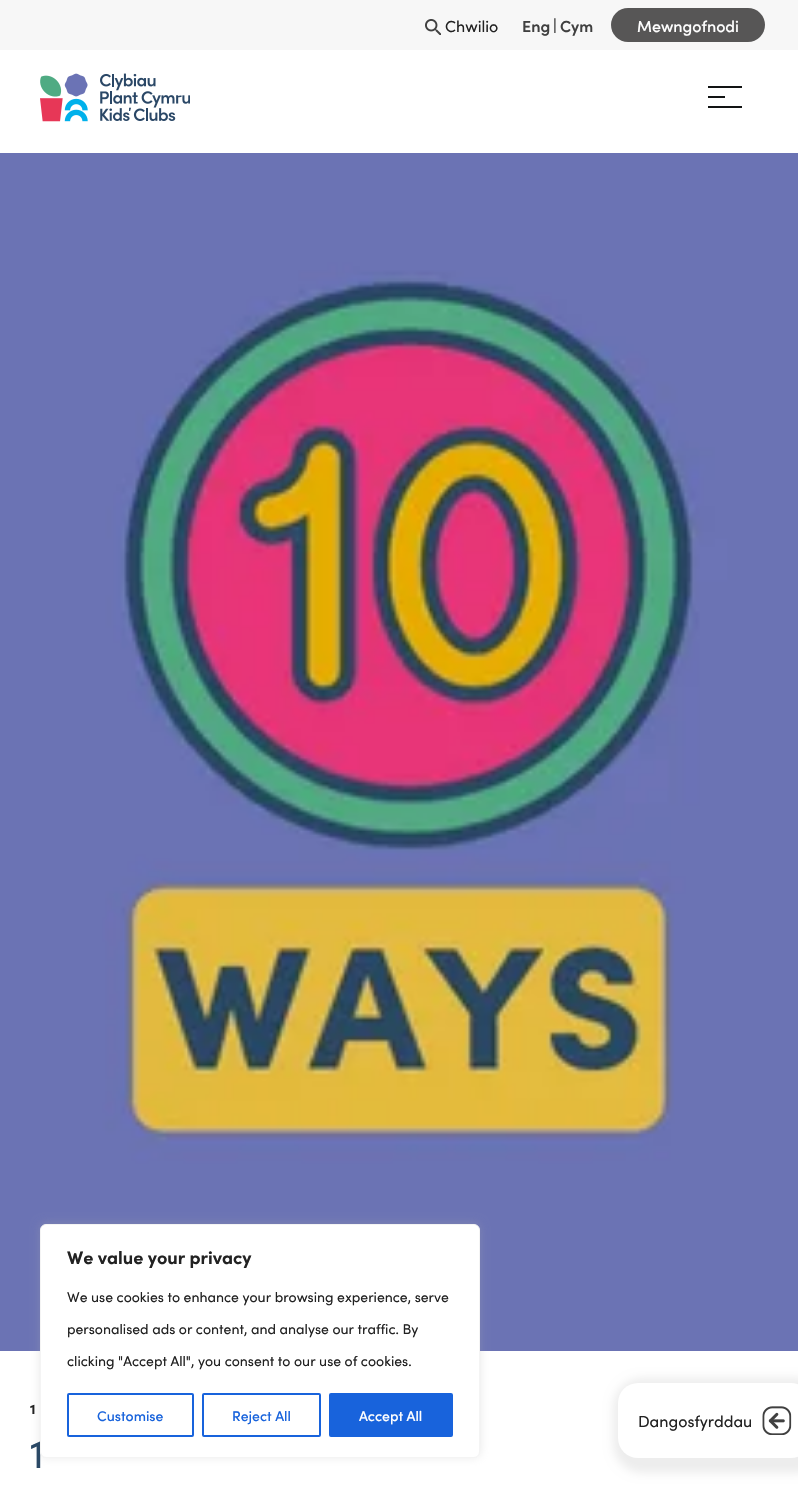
void draw(SkCanvas* canvas) {
    SkPaint paint;
    paint.setAntiAlias(true);
    auto spacedText = [&](const char* s, float x, float y, const SkFont& font, const SkPaint& ink, float letter, float word) {
        std::vector<SkGlyphID> glyphs(font.countText(s, strlen(s), SkTextEncoding::kUTF8));
        std::vector<float> xs(glyphs.size());
        font.textToGlyphs(s, strlen(s), SkTextEncoding::kUTF8, glyphs);
        font.getXPos(glyphs, xs, x);
        float extra = 0;
        for (size_t i = 0; i < glyphs.size(); i++) {
            xs[i] += extra;
            extra += letter + word * (glyphs[i] == font.unicharToGlyph(' '));
        }
        canvas->drawTextBlob(SkTextBlob::MakeFromPosHGlyphs(glyphs, xs, y, font), 0, 0, ink);
    };
    canvas->clear(0xFFFFFFFF);
    paint.setColor(0xFFF7F7F7);
    canvas->drawRect(SkRect::MakeXYWH(0, 0, 798, 50), paint);
    canvas->drawImageRect(SkImages::DeferredFromEncodedData(SkData::MakeFromFileName("img1.png")), SkRect::MakeXYWH(425, 19, 16, 16), SkSamplingOptions());
    SkFont font1(fontMgr->matchFamilyStyle("Sofia", SkFontStyle::Normal()), 16);
    font1.setSubpixel(true);
    paint.setColor(0xFF222222);
    canvas->drawString("Chwilio", 445, 32, font1, paint);
    SkFont font2(fontMgr->matchFamilyStyle("Sofia", SkFontStyle(600, SkFontStyle::kNormal_Width, SkFontStyle::kUpright_Slant)), 16);
    font2.setSubpixel(true);
    paint.setColor(0xFF404040);
    canvas->drawString("Eng", 522, 32, font2, paint);
    paint.setColor(0xFF222222);
    canvas->drawString("|", 553, 31, font1, paint);
    paint.setColor(0xFF404040);
    canvas->drawString("Cym", 560, 32, font2, paint);
    paint.setColor(0xFF575656);
    canvas->drawRoundRect(SkRect::MakeXYWH(611, 8, 154, 34), 17, 17, paint);
    SkFont font3(fontMgr->matchFamilyStyle("Sofia", SkFontStyle(500, SkFontStyle::kNormal_Width, SkFontStyle::kUpright_Slant)), 16);
    font3.setSubpixel(true);
    paint.setColor(0xFFFFFFFF);
    canvas->drawString("Mewngofnodi", 637, 32, font3, paint);
    canvas->drawImageRect(SkImages::DeferredFromEncodedData(SkData::MakeFromFileName("img2.png")), SkRect::MakeXYWH(40, 73, 48, 49), SkSamplingOptions());
    canvas->drawImageRect(SkImages::DeferredFromEncodedData(SkData::MakeFromFileName("img3.png")), SkRect::MakeXYWH(100, 73, 90, 48), SkSamplingOptions());
    paint.setColor(0xFF121414);
    canvas->drawRect(SkRect::MakeXYWH(708, 86, 34, 2), paint);
    canvas->drawRect(SkRect::MakeXYWH(708, 96, 17, 2), paint);
    canvas->drawRect(SkRect::MakeXYWH(708, 106, 34, 2), paint);
    canvas->drawImageRect(SkImages::DeferredFromEncodedData(SkData::MakeFromFileName("img4.png")), SkRect::MakeXYWH(0, 153, 798, 1198), SkSamplingOptions());
    paint.setColor(0x4DACABAB);
    paint.setMaskFilter(SkMaskFilter::MakeBlur(kNormal_SkBlurStyle, 5));
    canvas->drawRoundRect(SkRect::MakeXYWH(40, 1223, 440, 234), 6, 6, paint);
    paint.setMaskFilter(nullptr);
    SkFont font4(fontMgr->matchFamilyStyle("Sofia", SkFontStyle::Normal()), 40);
    font4.setSubpixel(true);
    paint.setColor(0xFF2A4865);
    canvas->drawString("1", 30, 1468, font4, paint);
    paint.setColor(0xFFFFFFFF);
    canvas->drawRoundRect(SkRect::MakeXYWH(40.5f, 1224.5f, 439, 233), 5.5f, 5.5f, paint);
    paint.setStyle(SkPaint::kStroke_Style);
    paint.setStrokeWidth(1);
    paint.setColor(0xFFF4F4F4);
    canvas->drawRoundRect(SkRect::MakeXYWH(40.5f, 1224.5f, 439, 233), 5.5f, 5.5f, paint);
    SkFont font5(fontMgr->matchFamilyStyle("Sofia", SkFontStyle::Bold()), 18);
    font5.setSubpixel(true);
    paint.setStyle(SkPaint::kFill_Style);
    paint.setColor(0xFF222222);
    canvas->drawString("We value your privacy", 67, 1264, font5, paint);
    SkFont font6(fontMgr->matchFamilyStyle("Sofia", SkFontStyle::Normal()), 14);
    font6.setSubpixel(true);
    canvas->drawString("We use cookies to enhance your browsing experience, serve", 67, 1302, font6, paint);
    canvas->drawString("personalised ads or content, and analyse our traffic. By", 67, 1334, font6, paint);
    canvas->drawString("clicking \"Accept All\", you consent to our use of cookies.", 67, 1366, font6, paint);
    paint.setStyle(SkPaint::kStroke_Style);
    paint.setStrokeWidth(2);
    paint.setColor(0xFF1863DC);
    canvas->drawRoundRect(SkRect::MakeXYWH(68, 1394, 125, 42), 1, 1, paint);
    SkFont font7(fontMgr->matchFamilyStyle("Sofia", SkFontStyle(500, SkFontStyle::kNormal_Width, SkFontStyle::kUpright_Slant)), 14);
    font7.setSubpixel(true);
    paint.setStyle(SkPaint::kFill_Style);
    canvas->drawString("Customise", 97, 1421, font7, paint);
    paint.setStyle(SkPaint::kStroke_Style);
    canvas->drawRoundRect(SkRect::MakeXYWH(203, 1394, 117, 42), 1, 1, paint);
    paint.setStyle(SkPaint::kFill_Style);
    canvas->drawString("Reject All", 232, 1421, font7, paint);
    canvas->drawRoundRect(SkRect::MakeXYWH(330, 1394, 122, 42), 1, 1, paint);
    paint.setStyle(SkPaint::kStroke_Style);
    canvas->drawRoundRect(SkRect::MakeXYWH(330, 1394, 122, 42), 1, 1, paint);
    paint.setStyle(SkPaint::kFill_Style);
    paint.setColor(0xFFFFFFFF);
    canvas->drawString("Accept All", 359, 1421, font7, paint);
    SkFont font8(fontMgr->matchFamilyStyle("Sofia", SkFontStyle::Bold()), 14);
    font8.setSubpixel(true);
    paint.setColor(0xFF222222);
    spacedText("1", 30, 1414, font8, paint, 1, 0);
    paint.setColor(0x12000000);
    paint.setMaskFilter(SkMaskFilter::MakeBlur(kNormal_SkBlurStyle, 5));
    canvas->drawRoundRect(SkRect::MakeXYWH(613, 1378, 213, 95), 30, 30, paint);
    paint.setMaskFilter(nullptr);
    paint.setColor(0xFFFFFFFF);
    canvas->drawRoundRect(SkRect::MakeXYWH(618, 1383, 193, 75), 20, 20, paint);
    paint.setColor(0xFF222222);
    canvas->drawString("Dangosfyrddau", 638, 1427, font1, paint);
    canvas->drawImageRect(SkImages::DeferredFromEncodedData(SkData::MakeFromFileName("img5.png")), SkRect::MakeXYWH(762, 1406, 30, 29), SkSamplingOptions());
}
